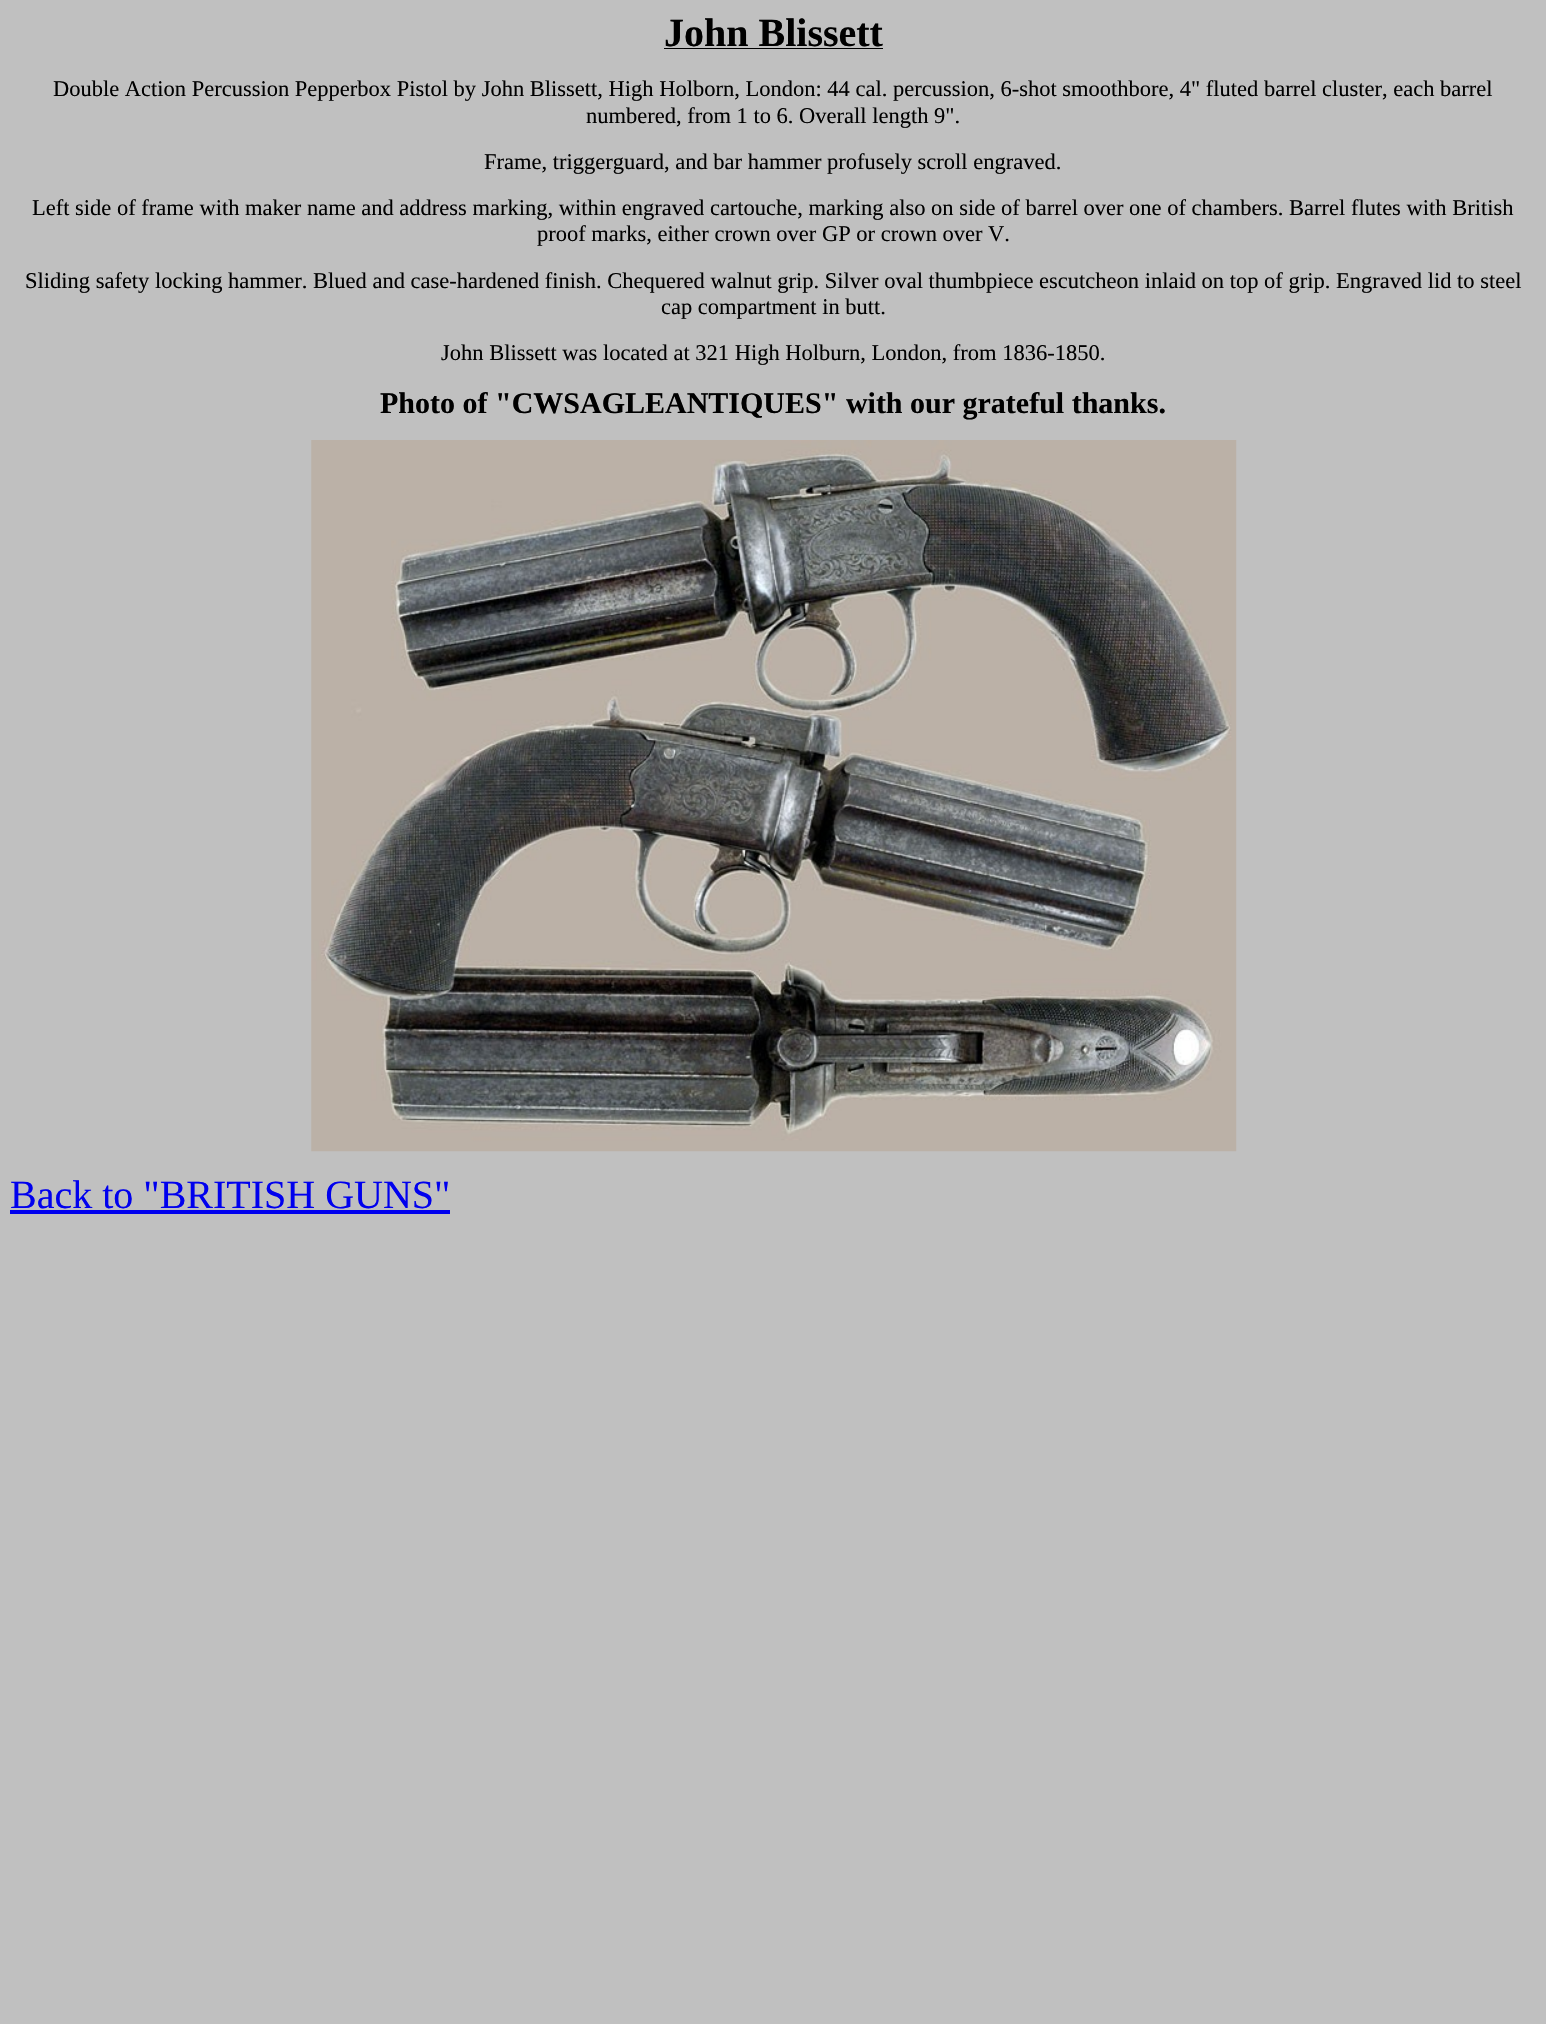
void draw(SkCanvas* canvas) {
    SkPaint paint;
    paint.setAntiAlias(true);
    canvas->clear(0xFFC0C0C0);
    SkFont font1(fontMgr->matchFamilyStyle("Liberation Serif", SkFontStyle::Bold()), 40);
    font1.setSubpixel(true);
    paint.setColor(0xFF000000);
    canvas->drawString("John Blissett", 664, 46, font1, paint);
    canvas->drawRect(SkRect::MakeXYWH(664, 48, 219, 1), paint);
    SkFont font2(fontMgr->matchFamilyStyle("Liberation Serif", SkFontStyle::Normal()), 22.5f);
    font2.setSubpixel(true);
    canvas->drawString("Double Action Percussion Pepperbox Pistol by John Blissett, High Holborn, London: 44 cal. percussion, 6-shot smoothbore, 4\" fluted barrel cluster, each barrel", 53, 96, font2, paint);
    canvas->drawString("numbered, from 1 to 6. Overall length 9\".", 586, 123, font2, paint);
    canvas->drawString("Frame, triggerguard, and bar hammer profusely scroll engraved.", 484, 169, font2, paint);
    canvas->drawString("Left side of frame with maker name and address marking, within engraved cartouche, marking also on side of barrel over one of chambers. Barrel flutes with British", 32, 215, font2, paint);
    canvas->drawString("proof marks, either crown over GP or crown over V.", 537, 241, font2, paint);
    canvas->drawString("Sliding safety locking hammer. Blued and case-hardened finish. Chequered walnut grip. Silver oval thumbpiece escutcheon inlaid on top of grip. Engraved lid to steel", 25, 288, font2, paint);
    canvas->drawString("cap compartment in butt.", 661, 314, font2, paint);
    canvas->drawString("John Blissett was located at 321 High Holburn, London, from 1836-1850.", 441, 360, font2, paint);
    SkFont font3(fontMgr->matchFamilyStyle("Liberation Serif", SkFontStyle::Bold()), 30);
    font3.setSubpixel(true);
    canvas->drawString("Photo of \"CWSAGLEANTIQUES\" with our grateful thanks.", 380, 413, font3, paint);
    canvas->drawImageRect(SkImages::DeferredFromEncodedData(SkData::MakeFromFileName("img1.png")), SkRect::MakeXYWH(311, 440, 926, 712), SkSamplingOptions());
    SkFont font4(fontMgr->matchFamilyStyle("Liberation Serif", SkFontStyle::Normal()), 40);
    font4.setSubpixel(true);
    paint.setColor(0xFF0000EE);
    canvas->drawString("Back to \"BRITISH GUNS\"", 10, 1208, font4, paint);
    canvas->drawRect(SkRect::MakeXYWH(10, 1210, 440, 4), paint);
}
